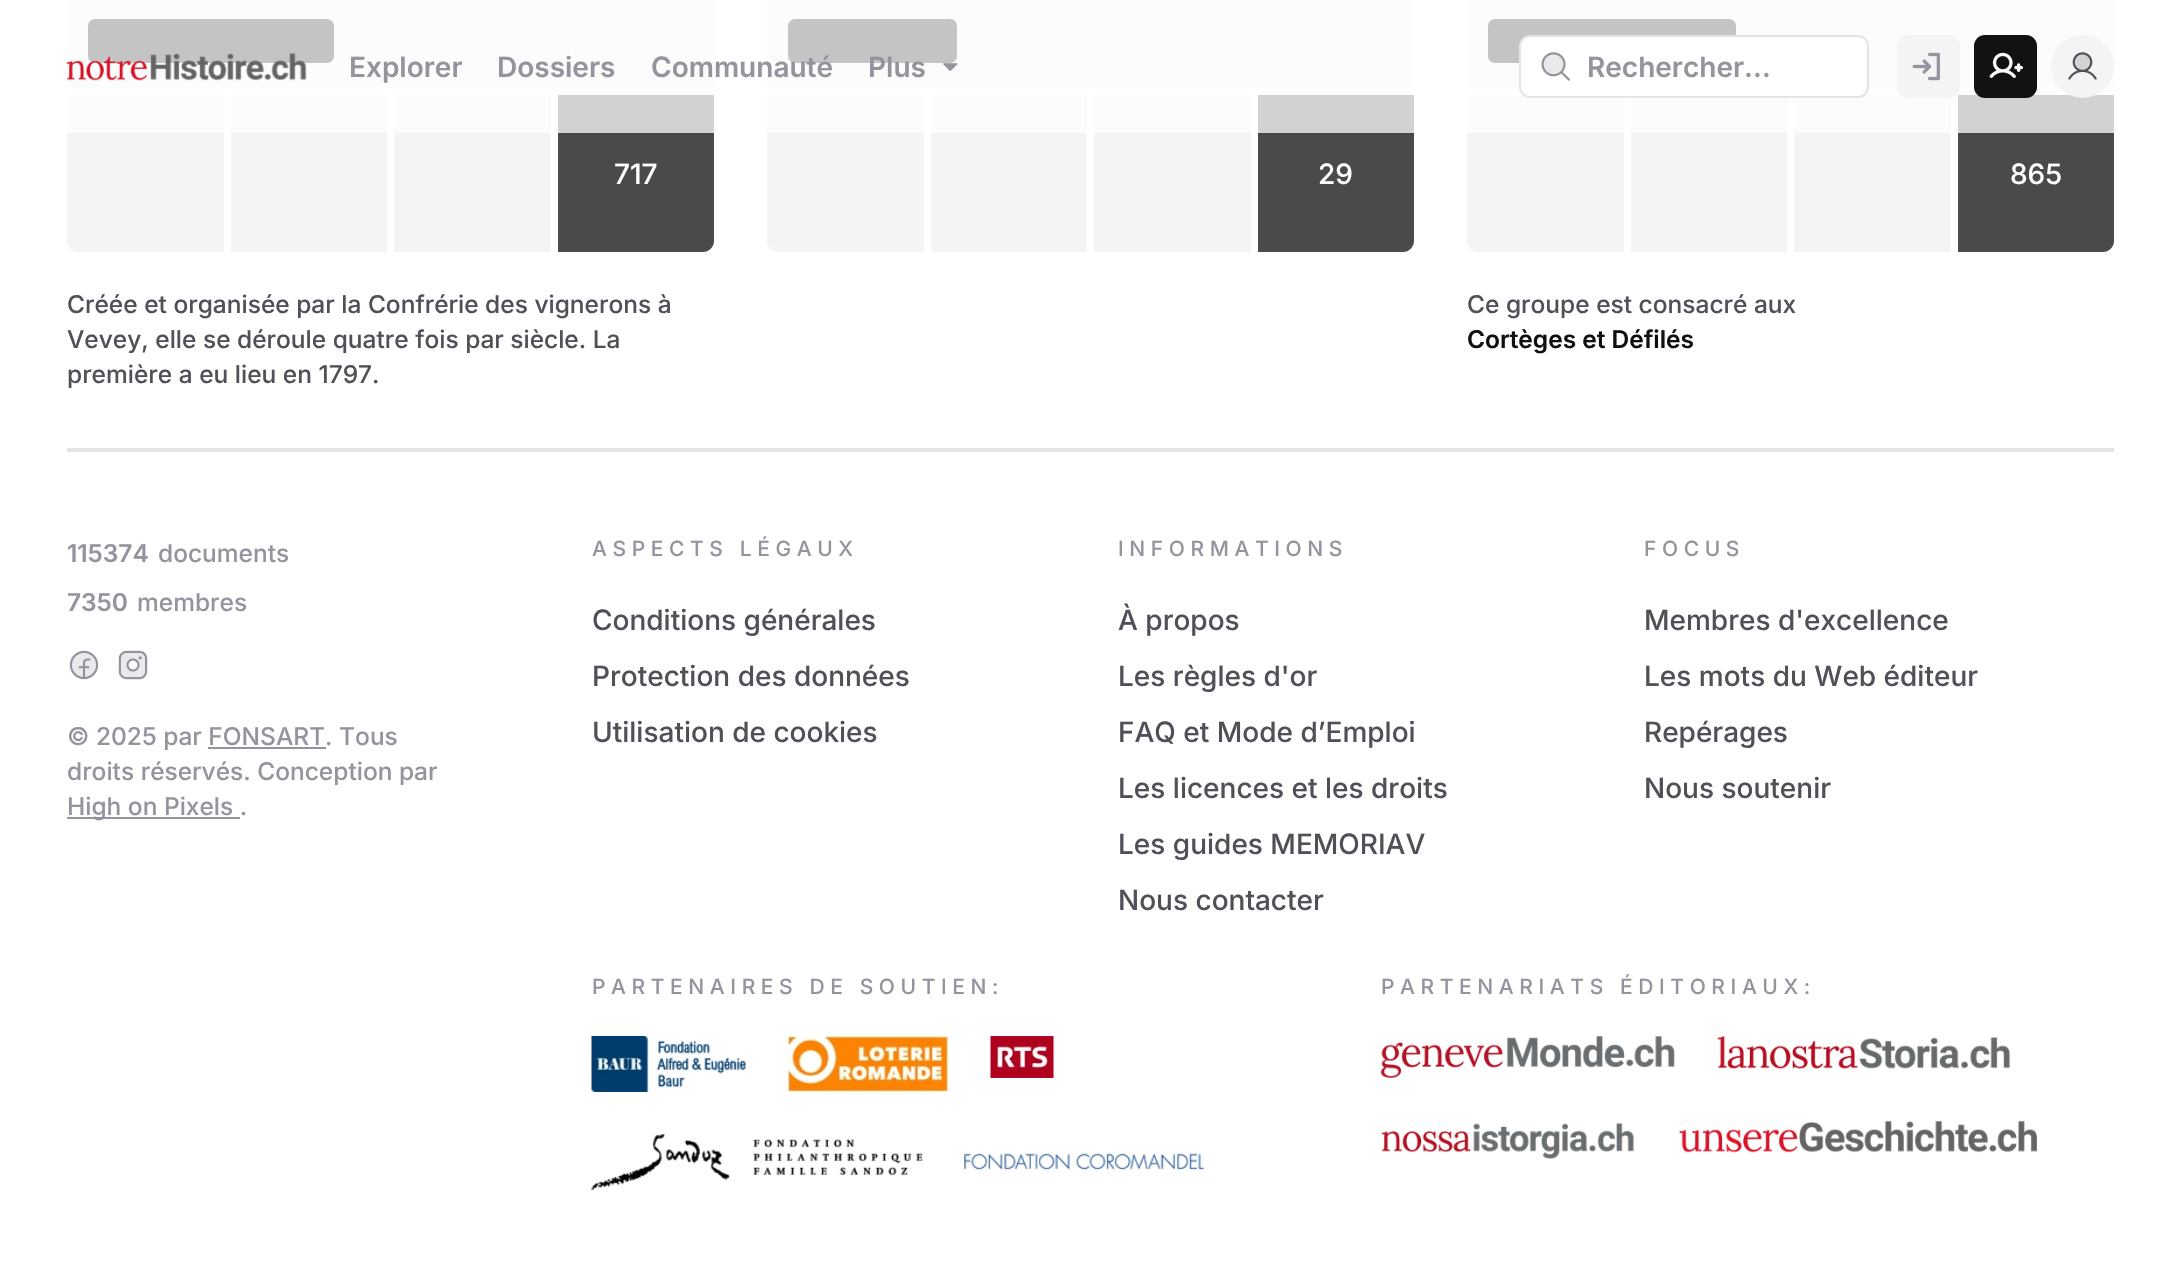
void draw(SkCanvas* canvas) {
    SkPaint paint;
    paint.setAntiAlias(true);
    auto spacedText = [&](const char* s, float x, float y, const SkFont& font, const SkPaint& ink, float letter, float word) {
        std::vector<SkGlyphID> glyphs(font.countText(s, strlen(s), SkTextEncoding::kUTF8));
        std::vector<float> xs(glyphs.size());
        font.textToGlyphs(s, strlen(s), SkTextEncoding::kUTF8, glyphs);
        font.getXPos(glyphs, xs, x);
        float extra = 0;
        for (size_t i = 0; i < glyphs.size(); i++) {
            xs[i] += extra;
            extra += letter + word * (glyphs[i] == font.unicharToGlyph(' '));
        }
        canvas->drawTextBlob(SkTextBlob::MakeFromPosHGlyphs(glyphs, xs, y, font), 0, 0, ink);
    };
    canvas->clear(0xFFFFFFFF);
    paint.setColor(0xFFF4F4F5);
    canvas->drawRect(SkRect::MakeXYWH(67, 0, 647, 88), paint);
    paint.setColor(0xFF121212);
    canvas->drawRoundRect(SkRect::MakeXYWH(88, 19, 246, 44), 7, 7, paint);
    paint.setColor(0xFFF4F4F5);
    canvas->drawPath(SkPathBuilder().moveTo(67, 95).lineTo(224, 95).lineTo(224, 252).lineTo(78, 252).cubicTo(72, 252, 67, 247, 67, 241).close().detach(), paint);
    canvas->drawRect(SkRect::MakeXYWH(231, 95, 156, 157), paint);
    canvas->drawRect(SkRect::MakeXYWH(394, 95, 157, 157), paint);
    canvas->drawPath(SkPathBuilder().moveTo(558, 95).lineTo(714, 95).lineTo(714, 241).cubicTo(714, 247, 709, 252, 703, 252).lineTo(558, 252).close().detach(), paint);
    paint.setColor(0xBF121212);
    canvas->drawPath(SkPathBuilder().moveTo(558, 95).lineTo(714, 95).lineTo(714, 241).cubicTo(714, 247, 709, 252, 703, 252).lineTo(558, 252).close().detach(), paint);
    paint.setColor(0xFFF4F4F5);
    canvas->drawRect(SkRect::MakeXYWH(767, 0, 647, 88), paint);
    paint.setColor(0xFF121212);
    canvas->drawRoundRect(SkRect::MakeXYWH(788, 19, 169, 44), 7, 7, paint);
    paint.setColor(0xFFF4F4F5);
    canvas->drawPath(SkPathBuilder().moveTo(767, 95).lineTo(924, 95).lineTo(924, 252).lineTo(778, 252).cubicTo(772, 252, 767, 247, 767, 241).close().detach(), paint);
    canvas->drawRect(SkRect::MakeXYWH(931, 95, 156, 157), paint);
    canvas->drawRect(SkRect::MakeXYWH(1094, 95, 157, 157), paint);
    canvas->drawPath(SkPathBuilder().moveTo(1258, 95).lineTo(1414, 95).lineTo(1414, 241).cubicTo(1414, 247, 1409, 252, 1403, 252).lineTo(1258, 252).close().detach(), paint);
    paint.setColor(0xBF121212);
    canvas->drawPath(SkPathBuilder().moveTo(1258, 95).lineTo(1414, 95).lineTo(1414, 241).cubicTo(1414, 247, 1409, 252, 1403, 252).lineTo(1258, 252).close().detach(), paint);
    paint.setColor(0xFFF4F4F5);
    canvas->drawRect(SkRect::MakeXYWH(1467, 0, 647, 88), paint);
    paint.setColor(0xFF121212);
    canvas->drawRoundRect(SkRect::MakeXYWH(1488, 19, 248, 44), 7, 7, paint);
    paint.setColor(0xFFF4F4F5);
    canvas->drawPath(SkPathBuilder().moveTo(1467, 95).lineTo(1624, 95).lineTo(1624, 252).lineTo(1478, 252).cubicTo(1472, 252, 1467, 247, 1467, 241).close().detach(), paint);
    canvas->drawRect(SkRect::MakeXYWH(1631, 98, 156, 154), paint);
    canvas->drawRect(SkRect::MakeXYWH(1794, 95, 157, 157), paint);
    canvas->drawPath(SkPathBuilder().moveTo(1958, 95).lineTo(2114, 95).lineTo(2114, 241).cubicTo(2114, 247, 2109, 252, 2103, 252).lineTo(1958, 252).close().detach(), paint);
    paint.setColor(0xBF121212);
    canvas->drawPath(SkPathBuilder().moveTo(1958, 95).lineTo(2114, 95).lineTo(2114, 241).cubicTo(2114, 247, 2109, 252, 2103, 252).lineTo(1958, 252).close().detach(), paint);
    paint.setColor(0xBFFFFFFF);
    canvas->drawRect(SkRect::MakeXYWH(67, 0, 2047, 133), paint);
    canvas->drawImageRect(SkImages::DeferredFromEncodedData(SkData::MakeFromFileName("img1.png")), SkRect::MakeXYWH(66, 53, 241, 28), SkSamplingOptions());
    SkFont font1(fontMgr->matchFamilyStyle("Inter", SkFontStyle(600, SkFontStyle::kNormal_Width, SkFontStyle::kUpright_Slant)), 28);
    font1.setSubpixel(true);
    paint.setColor(0xFF94949E);
    canvas->drawString("Explorer", 349, 77, font1, paint);
    canvas->drawString("Dossiers", 497, 77, font1, paint);
    canvas->drawString("Communauté", 651, 77, font1, paint);
    canvas->drawString("Plus", 868, 77, font1, paint);
    canvas->drawImageRect(SkImages::DeferredFromEncodedData(SkData::MakeFromFileName("img2.png")), SkRect::MakeXYWH(943, 63, 15, 8), SkSamplingOptions());
    paint.setColor(0xFFFFFFFF);
    canvas->drawRoundRect(SkRect::MakeXYWH(1520, 36, 348, 61), 10, 10, paint);
    paint.setStyle(SkPaint::kStroke_Style);
    paint.setStrokeWidth(2);
    paint.setColor(0xFFE4E4E7);
    canvas->drawRoundRect(SkRect::MakeXYWH(1520, 36, 348, 61), 10, 10, paint);
    canvas->drawImageRect(SkImages::DeferredFromEncodedData(SkData::MakeFromFileName("img3.png")), SkRect::MakeXYWH(1541, 52, 29, 29), SkSamplingOptions());
    paint.setStyle(SkPaint::kFill_Style);
    paint.setColor(0xFF94949E);
    canvas->drawString("Rechercher…", 1587, 77, font1, paint);
    paint.setColor(0xFFF4F4F5);
    canvas->drawRoundRect(SkRect::MakeXYWH(1897, 35, 63, 63), 11, 11, paint);
    canvas->drawImageRect(SkImages::DeferredFromEncodedData(SkData::MakeFromFileName("img4.png")), SkRect::MakeXYWH(1912, 52, 28, 29), SkSamplingOptions());
    paint.setColor(0xFF121212);
    canvas->drawRoundRect(SkRect::MakeXYWH(1974, 35, 63, 63), 11, 11, paint);
    canvas->drawImageRect(SkImages::DeferredFromEncodedData(SkData::MakeFromFileName("img5.png")), SkRect::MakeXYWH(1989, 52, 34, 26), SkSamplingOptions());
    paint.setColor(0xFFF4F4F5);
    canvas->drawCircle(2082.5f, 66.5f, 31.5f, paint);
    canvas->drawImageRect(SkImages::DeferredFromEncodedData(SkData::MakeFromFileName("img6.png")), SkRect::MakeXYWH(2068, 52, 29, 28), SkSamplingOptions());
    SkFont font2(fontMgr->matchFamilyStyle("Inter", SkFontStyle(500, SkFontStyle::kNormal_Width, SkFontStyle::kUpright_Slant)), 28);
    font2.setSubpixel(true);
    paint.setColor(0xFFFFFFFF);
    canvas->drawString("717", 614, 184, font2, paint);
    SkFont font3(fontMgr->matchFamilyStyle("Inter", SkFontStyle(500, SkFontStyle::kNormal_Width, SkFontStyle::kUpright_Slant)), 24.5f);
    font3.setSubpixel(true);
    paint.setColor(0xFF505058);
    canvas->drawString("Créée et organisée par la Confrérie des vignerons à", 67, 313, font3, paint);
    canvas->drawString("Vevey, elle se déroule quatre fois par siècle. La", 67, 348, font3, paint);
    canvas->drawString("première a eu lieu en 1797.", 67, 383, font3, paint);
    paint.setColor(0xFFFFFFFF);
    canvas->drawString("29", 1318, 184, font2, paint);
    canvas->drawString("865", 2010, 184, font2, paint);
    paint.setColor(0xFF505058);
    canvas->drawString("Ce groupe est consacré aux", 1467, 313, font3, paint);
    SkFont font4(fontMgr->matchFamilyStyle("Inter", SkFontStyle(600, SkFontStyle::kNormal_Width, SkFontStyle::kUpright_Slant)), 24.5f);
    font4.setSubpixel(true);
    paint.setColor(0xFF101014);
    canvas->drawString("Cortèges et Défilés", 1467, 348, font4, paint);
    paint.setColor(0xFFE4E4E7);
    canvas->drawRect(SkRect::MakeXYWH(67, 448, 2047, 4), paint);
    paint.setColor(0xFF94949E);
    canvas->drawString("115 374", 67, 562, font4, paint);
    canvas->drawString("documents", 158, 562, font3, paint);
    canvas->drawString("7 350", 67, 611, font4, paint);
    canvas->drawString("membres", 137, 611, font3, paint);
    canvas->drawImageRect(SkImages::DeferredFromEncodedData(SkData::MakeFromFileName("img7.png")), SkRect::MakeXYWH(69, 650, 30, 30), SkSamplingOptions());
    canvas->drawImageRect(SkImages::DeferredFromEncodedData(SkData::MakeFromFileName("img8.png")), SkRect::MakeXYWH(118, 650, 30, 30), SkSamplingOptions());
    canvas->drawString("© 2025 par FONSART. Tous", 67, 745, font3, paint);
    canvas->drawRect(SkRect::MakeXYWH(208, 747, 118, 2), paint);
    canvas->drawString("droits réservés. Conception par", 67, 780, font3, paint);
    canvas->drawRect(SkRect::MakeXYWH(67, 817, 173, 2), paint);
    canvas->drawString("High on Pixels .", 67, 815, font3, paint);
    SkFont font5(fontMgr->matchFamilyStyle("Inter", SkFontStyle(500, SkFontStyle::kNormal_Width, SkFontStyle::kUpright_Slant)), 21);
    font5.setSubpixel(true);
    spacedText("ASPECTS LÉGAUX", 592, 556, font5, paint, 5.6f, 0);
    paint.setColor(0xFF505058);
    canvas->drawString("Conditions générales", 592, 630, font2, paint);
    canvas->drawString("Protection des données", 592, 686, font2, paint);
    canvas->drawString("Utilisation de cookies", 592, 742, font2, paint);
    paint.setColor(0xFF94949E);
    spacedText("INFORMATIONS", 1118, 556, font5, paint, 5.6f, 0);
    paint.setColor(0xFF505058);
    canvas->drawString("À propos", 1118, 630, font2, paint);
    canvas->drawString("Les règles d'or", 1118, 686, font2, paint);
    canvas->drawString("FAQ et Mode d’Emploi", 1118, 742, font2, paint);
    canvas->drawString("Les licences et les droits", 1118, 798, font2, paint);
    canvas->drawString("Les guides MEMORIAV", 1118, 854, font2, paint);
    canvas->drawString("Nous contacter", 1118, 910, font2, paint);
    paint.setColor(0xFF94949E);
    spacedText("FOCUS", 1644, 556, font5, paint, 5.6f, 0);
    paint.setColor(0xFF505058);
    canvas->drawString("Membres d'excellence", 1644, 630, font2, paint);
    canvas->drawString("Les mots du Web éditeur", 1644, 686, font2, paint);
    canvas->drawString("Repérages", 1644, 742, font2, paint);
    canvas->drawString("Nous soutenir", 1644, 798, font2, paint);
    paint.setColor(0xFF94949E);
    spacedText("PARTENAIRES DE SOUTIEN:", 592, 994, font5, paint, 5.6f, 0);
    canvas->drawImageRect(SkImages::DeferredFromEncodedData(SkData::MakeFromFileName("img9.png")), SkRect::MakeXYWH(591, 1036, 155, 56), SkSamplingOptions());
    canvas->drawImageRect(SkImages::DeferredFromEncodedData(SkData::MakeFromFileName("img10.png")), SkRect::MakeXYWH(787, 1036, 162, 56), SkSamplingOptions());
    canvas->drawImageRect(SkImages::DeferredFromEncodedData(SkData::MakeFromFileName("img11.png")), SkRect::MakeXYWH(990, 1036, 64, 42), SkSamplingOptions());
    canvas->drawImageRect(SkImages::DeferredFromEncodedData(SkData::MakeFromFileName("img12.png")), SkRect::MakeXYWH(591, 1134, 332, 56), SkSamplingOptions());
    canvas->drawImageRect(SkImages::DeferredFromEncodedData(SkData::MakeFromFileName("img13.png")), SkRect::MakeXYWH(964, 1153, 240, 17), SkSamplingOptions());
    spacedText("PARTENARIATS ÉDITORIAUX:", 1381, 994, font5, paint, 5.6f, 0);
    canvas->drawImageRect(SkImages::DeferredFromEncodedData(SkData::MakeFromFileName("img14.png")), SkRect::MakeXYWH(1380, 1036, 295, 42), SkSamplingOptions());
    canvas->drawImageRect(SkImages::DeferredFromEncodedData(SkData::MakeFromFileName("img15.png")), SkRect::MakeXYWH(1717, 1036, 293, 33), SkSamplingOptions());
    canvas->drawImageRect(SkImages::DeferredFromEncodedData(SkData::MakeFromFileName("img16.png")), SkRect::MakeXYWH(1381, 1123, 253, 36), SkSamplingOptions());
    canvas->drawImageRect(SkImages::DeferredFromEncodedData(SkData::MakeFromFileName("img17.png")), SkRect::MakeXYWH(1679, 1120, 358, 33), SkSamplingOptions());
}
